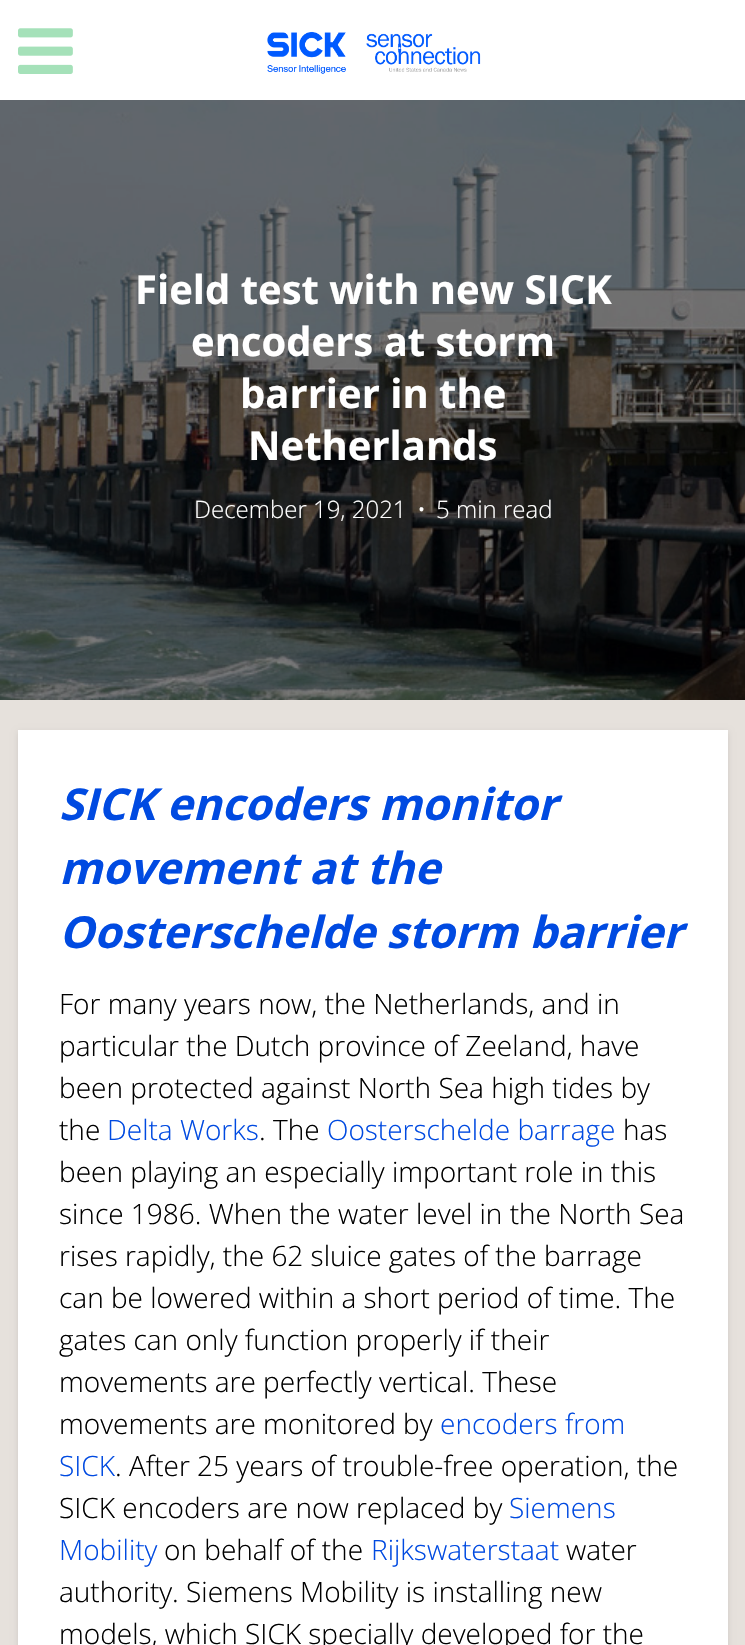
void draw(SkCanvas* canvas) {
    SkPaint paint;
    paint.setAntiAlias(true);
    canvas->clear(0xFFE6E1DC);
    paint.setColor(0xFFFFFFFF);
    canvas->drawRect(SkRect::MakeXYWH(0, 0, 745, 100), paint);
    canvas->drawImageRect(SkImages::DeferredFromEncodedData(SkData::MakeFromFileName("img1.png")), SkRect::MakeXYWH(18, 28, 55, 46), SkSamplingOptions());
    canvas->drawImageRect(SkImages::DeferredFromEncodedData(SkData::MakeFromFileName("img2.png")), SkRect::MakeXYWH(267, 31, 214, 43), SkSamplingOptions());
    canvas->drawImageRect(SkImages::DeferredFromEncodedData(SkData::MakeFromFileName("img3.png")), SkRect::MakeXYWH(0, 100, 745, 600), SkSamplingOptions());
    SkFont font1(fontMgr->matchFamilyStyle("Open Sans", SkFontStyle::Bold()), 40);
    font1.setSubpixel(true);
    canvas->drawString("Field test with new SICK", 135, 304, font1, paint);
    canvas->drawString("encoders at storm", 191, 356, font1, paint);
    canvas->drawString("barrier in the", 240, 408, font1, paint);
    canvas->drawString("Netherlands", 248, 460, font1, paint);
    SkFont font2(fontMgr->matchFamilyStyle("Open Sans", SkFontStyle(300, SkFontStyle::kNormal_Width, SkFontStyle::kUpright_Slant)), 24);
    font2.setSubpixel(true);
    canvas->drawString("December 19, 2021", 194, 518, font2, paint);
    canvas->drawString("•", 417, 518, font2, paint);
    canvas->drawString("5 min read", 436, 518, font2, paint);
    paint.setColor(0x1A000000);
    paint.setMaskFilter(SkMaskFilter::MakeBlur(kNormal_SkBlurStyle, 3));
    canvas->drawRect(SkRect::MakeXYWH(18, 732, 710, 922), paint);
    paint.setMaskFilter(nullptr);
    paint.setColor(0xFFFFFFFF);
    canvas->drawRect(SkRect::MakeXYWH(18, 730, 710, 915), paint);
    SkFont font3(fontMgr->matchFamilyStyle("Open Sans", SkFontStyle::BoldItalic()), 44);
    font3.setSubpixel(true);
    paint.setColor(0xFF004AE1);
    canvas->drawString("SICK encoders monitor", 59, 820, font3, paint);
    canvas->drawString("movement at the", 59, 884, font3, paint);
    canvas->drawString("Oosterschelde storm barrier", 59, 948, font3, paint);
    SkFont font4(fontMgr->matchFamilyStyle("Open Sans", SkFontStyle(300, SkFontStyle::kNormal_Width, SkFontStyle::kUpright_Slant)), 28);
    font4.setSubpixel(true);
    paint.setColor(0xFF000000);
    canvas->drawString("For many years now, the Netherlands, and in", 59, 1014, font4, paint);
    canvas->drawString("particular the Dutch province of Zeeland, have", 59, 1056, font4, paint);
    canvas->drawString("been protected against North Sea high tides by", 59, 1098, font4, paint);
    canvas->drawString("the", 59, 1140, font4, paint);
    paint.setColor(0xFF004AE1);
    canvas->drawString("Delta Works", 107, 1140, font4, paint);
    paint.setColor(0xFF000000);
    canvas->drawString(". The", 259, 1140, font4, paint);
    paint.setColor(0xFF004AE1);
    canvas->drawString("Oosterschelde barrage", 327, 1140, font4, paint);
    paint.setColor(0xFF000000);
    canvas->drawString("has", 623, 1140, font4, paint);
    canvas->drawString("been playing an especially important role in this", 59, 1182, font4, paint);
    canvas->drawString("since 1986. When the water level in the North Sea", 59, 1224, font4, paint);
    canvas->drawString("rises rapidly, the 62 sluice gates of the barrage", 59, 1266, font4, paint);
    canvas->drawString("can be lowered within a short period of time. The", 59, 1308, font4, paint);
    canvas->drawString("gates can only function properly if their", 59, 1350, font4, paint);
    canvas->drawString("movements are perfectly vertical. These", 59, 1392, font4, paint);
    canvas->drawString("movements are monitored by", 59, 1434, font4, paint);
    paint.setColor(0xFF004AE1);
    canvas->drawString("encoders from", 440, 1434, font4, paint);
    canvas->drawString("SICK", 59, 1476, font4, paint);
    paint.setColor(0xFF000000);
    canvas->drawString(". After 25 years of trouble-free operation, the", 115, 1476, font4, paint);
    canvas->drawString("SICK encoders are now replaced by", 59, 1518, font4, paint);
    paint.setColor(0xFF004AE1);
    canvas->drawString("Siemens", 509, 1518, font4, paint);
    canvas->drawString("Mobility", 59, 1560, font4, paint);
    paint.setColor(0xFF000000);
    canvas->drawString("on behalf of the", 164, 1560, font4, paint);
    paint.setColor(0xFF004AE1);
    canvas->drawString("Rijkswaterstaat", 371, 1560, font4, paint);
    paint.setColor(0xFF000000);
    canvas->drawString("water", 566, 1560, font4, paint);
    canvas->drawString("authority. Siemens Mobility is installing new", 59, 1602, font4, paint);
    canvas->drawString("models, which SICK specially developed for the", 59, 1644, font4, paint);
}
